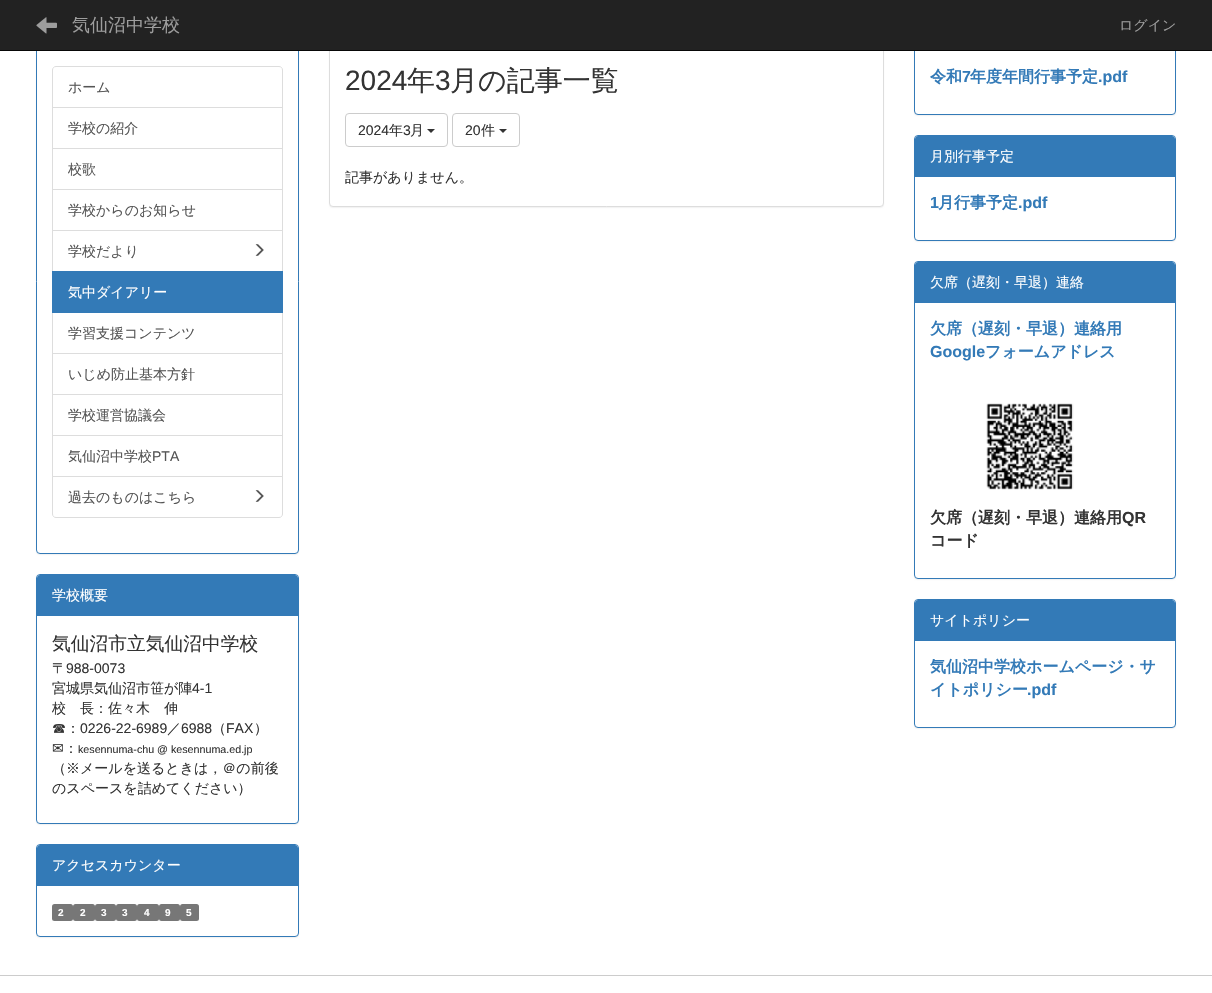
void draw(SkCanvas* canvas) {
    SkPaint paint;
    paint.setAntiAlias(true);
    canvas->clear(0xFFFFFFFF);
    paint.setColor(0x0D000000);
    paint.setMaskFilter(SkMaskFilter::MakeBlur(kNormal_SkBlurStyle, 0.5f));
    canvas->drawRoundRect(SkRect::MakeXYWH(36, 10, 263, 545), 4, 4, paint);
    paint.setMaskFilter(nullptr);
    paint.setColor(0xFFFFFFFF);
    canvas->drawRoundRect(SkRect::MakeXYWH(36.5f, 9.5f, 262, 544), 3.5f, 3.5f, paint);
    paint.setStyle(SkPaint::kStroke_Style);
    paint.setStrokeWidth(1);
    paint.setColor(0xFF337AB7);
    canvas->drawRoundRect(SkRect::MakeXYWH(36.5f, 9.5f, 262, 544), 3.5f, 3.5f, paint);
    paint.setStyle(SkPaint::kFill_Style);
    paint.setColor(0x0D000000);
    paint.setMaskFilter(SkMaskFilter::MakeBlur(kNormal_SkBlurStyle, 0.5f));
    canvas->drawRoundRect(SkRect::MakeXYWH(329, 10, 555, 198), 4, 4, paint);
    paint.setMaskFilter(nullptr);
    paint.setColor(0xFFFFFFFF);
    canvas->drawRoundRect(SkRect::MakeXYWH(329.5f, 9.5f, 554, 197), 3.5f, 3.5f, paint);
    paint.setStyle(SkPaint::kStroke_Style);
    paint.setColor(0xFFDDDDDD);
    canvas->drawRoundRect(SkRect::MakeXYWH(329.5f, 9.5f, 554, 197), 3.5f, 3.5f, paint);
    paint.setStyle(SkPaint::kFill_Style);
    paint.setColor(0x0D000000);
    paint.setMaskFilter(SkMaskFilter::MakeBlur(kNormal_SkBlurStyle, 0.5f));
    canvas->drawRoundRect(SkRect::MakeXYWH(914, 10, 262, 106), 4, 4, paint);
    paint.setMaskFilter(nullptr);
    paint.setColor(0xFFFFFFFF);
    canvas->drawRoundRect(SkRect::MakeXYWH(914.5f, 9.5f, 261, 105), 3.5f, 3.5f, paint);
    paint.setStyle(SkPaint::kStroke_Style);
    paint.setColor(0xFF337AB7);
    canvas->drawRoundRect(SkRect::MakeXYWH(914.5f, 9.5f, 261, 105), 3.5f, 3.5f, paint);
    paint.setStyle(SkPaint::kFill_Style);
    paint.setColor(0xFF222222);
    canvas->drawRect(SkRect::MakeXYWH(0, 0, 1212, 50), paint);
    paint.setColor(0xFF080808);
    canvas->drawRect(SkRect::MakeXYWH(0, 50, 1212, 1), paint);
    canvas->drawImageRect(SkImages::DeferredFromEncodedData(SkData::MakeFromFileName("img1.png")), SkRect::MakeXYWH(36, 17, 21, 17), SkSamplingOptions());
    SkFont font1(fontMgr->matchFamilyStyle("WenQuanYi Zen Hei", SkFontStyle(500, SkFontStyle::kNormal_Width, SkFontStyle::kUpright_Slant)), 18);
    font1.setSubpixel(true);
    paint.setColor(0xFF9D9D9D);
    canvas->drawString("気仙沼中学校", 72, 31, font1, paint);
    SkFont font2(fontMgr->matchFamilyStyle("WenQuanYi Zen Hei", SkFontStyle(500, SkFontStyle::kNormal_Width, SkFontStyle::kUpright_Slant)), 14);
    font2.setSubpixel(true);
    canvas->drawString("ログイン", 1119, 30, font2, paint);
    paint.setStyle(SkPaint::kStroke_Style);
    paint.setColor(0xFFDDDDDD);
    canvas->drawPath(SkPathBuilder().moveTo(56, 66.5f).lineTo(279, 66.5f).cubicTo(281, 66.5f, 282.5f, 68, 282.5f, 70).lineTo(282.5f, 107.5f).lineTo(52.5f, 107.5f).lineTo(52.5f, 70).cubicTo(52.5f, 68, 54, 66.5f, 56, 66.5f).close().detach(), paint);
    paint.setStyle(SkPaint::kFill_Style);
    paint.setColor(0xFF555555);
    canvas->drawString("ホーム", 68, 92, font2, paint);
    paint.setStyle(SkPaint::kStroke_Style);
    paint.setColor(0xFFDDDDDD);
    canvas->drawRect(SkRect::MakeXYWH(52.5f, 107.5f, 230, 41), paint);
    paint.setStyle(SkPaint::kFill_Style);
    paint.setColor(0xFF555555);
    canvas->drawString("学校の紹介", 68, 133, font2, paint);
    paint.setStyle(SkPaint::kStroke_Style);
    paint.setColor(0xFFDDDDDD);
    canvas->drawRect(SkRect::MakeXYWH(52.5f, 148.5f, 230, 41), paint);
    paint.setStyle(SkPaint::kFill_Style);
    paint.setColor(0xFF555555);
    canvas->drawString("校歌", 68, 174, font2, paint);
    paint.setStyle(SkPaint::kStroke_Style);
    paint.setColor(0xFFDDDDDD);
    canvas->drawRect(SkRect::MakeXYWH(52.5f, 189.5f, 230, 41), paint);
    paint.setStyle(SkPaint::kFill_Style);
    paint.setColor(0xFF555555);
    canvas->drawString("学校からのお知らせ", 68, 215, font2, paint);
    paint.setStyle(SkPaint::kStroke_Style);
    paint.setColor(0xFFDDDDDD);
    canvas->drawRect(SkRect::MakeXYWH(52.5f, 230.5f, 230, 41), paint);
    paint.setStyle(SkPaint::kFill_Style);
    paint.setColor(0xFF555555);
    canvas->drawString("学校だより", 68, 256, font2, paint);
    canvas->drawImageRect(SkImages::DeferredFromEncodedData(SkData::MakeFromFileName("img2.png")), SkRect::MakeXYWH(255, 244, 9, 12), SkSamplingOptions());
    paint.setStyle(SkPaint::kStroke_Style);
    paint.setColor(0xFFDDDDDD);
    canvas->drawRect(SkRect::MakeXYWH(52.5f, 312.5f, 230, 41), paint);
    paint.setStyle(SkPaint::kFill_Style);
    paint.setColor(0xFF337AB7);
    canvas->drawRect(SkRect::MakeXYWH(52, 271, 231, 42), paint);
    paint.setColor(0xFFFFFFFF);
    canvas->drawString("気中ダイアリー", 68, 297, font2, paint);
    paint.setColor(0xFF555555);
    canvas->drawString("学習支援コンテンツ", 68, 338, font2, paint);
    paint.setStyle(SkPaint::kStroke_Style);
    paint.setColor(0xFFDDDDDD);
    canvas->drawRect(SkRect::MakeXYWH(52.5f, 353.5f, 230, 41), paint);
    paint.setStyle(SkPaint::kFill_Style);
    paint.setColor(0xFF555555);
    canvas->drawString("いじめ防止基本方針", 68, 379, font2, paint);
    paint.setStyle(SkPaint::kStroke_Style);
    paint.setColor(0xFFDDDDDD);
    canvas->drawRect(SkRect::MakeXYWH(52.5f, 394.5f, 230, 41), paint);
    paint.setStyle(SkPaint::kFill_Style);
    paint.setColor(0xFF555555);
    canvas->drawString("学校運営協議会", 68, 420, font2, paint);
    paint.setStyle(SkPaint::kStroke_Style);
    paint.setColor(0xFFDDDDDD);
    canvas->drawRect(SkRect::MakeXYWH(52.5f, 435.5f, 230, 41), paint);
    paint.setStyle(SkPaint::kFill_Style);
    paint.setColor(0xFF555555);
    canvas->drawString("気仙沼中学校", 68, 461, font2, paint);
    SkFont font3(fontMgr->matchFamilyStyle("Liberation Sans", SkFontStyle::Normal()), 14);
    font3.setSubpixel(true);
    canvas->drawString("PTA", 152, 461, font3, paint);
    paint.setColor(0xFFFFFFFF);
    canvas->drawPath(SkPathBuilder().moveTo(52.5f, 476.5f).lineTo(282.5f, 476.5f).lineTo(282.5f, 514).cubicTo(282.5f, 516, 281, 517.5f, 279, 517.5f).lineTo(56, 517.5f).cubicTo(54, 517.5f, 52.5f, 516, 52.5f, 514).close().detach(), paint);
    paint.setStyle(SkPaint::kStroke_Style);
    paint.setColor(0xFFDDDDDD);
    canvas->drawPath(SkPathBuilder().moveTo(52.5f, 476.5f).lineTo(282.5f, 476.5f).lineTo(282.5f, 514).cubicTo(282.5f, 516, 281, 517.5f, 279, 517.5f).lineTo(56, 517.5f).cubicTo(54, 517.5f, 52.5f, 516, 52.5f, 514).close().detach(), paint);
    paint.setStyle(SkPaint::kFill_Style);
    paint.setColor(0xFF555555);
    canvas->drawString("過去のものはこちら", 68, 502, font2, paint);
    canvas->drawImageRect(SkImages::DeferredFromEncodedData(SkData::MakeFromFileName("img2.png")), SkRect::MakeXYWH(255, 490, 9, 12), SkSamplingOptions());
    paint.setColor(0x0D000000);
    paint.setMaskFilter(SkMaskFilter::MakeBlur(kNormal_SkBlurStyle, 0.5f));
    canvas->drawRoundRect(SkRect::MakeXYWH(36, 575, 263, 250), 4, 4, paint);
    paint.setMaskFilter(nullptr);
    paint.setColor(0xFFFFFFFF);
    canvas->drawRoundRect(SkRect::MakeXYWH(36.5f, 574.5f, 262, 249), 3.5f, 3.5f, paint);
    paint.setStyle(SkPaint::kStroke_Style);
    paint.setColor(0xFF337AB7);
    canvas->drawRoundRect(SkRect::MakeXYWH(36.5f, 574.5f, 262, 249), 3.5f, 3.5f, paint);
    paint.setStyle(SkPaint::kFill_Style);
    canvas->drawPath(SkPathBuilder().moveTo(40, 575).lineTo(295, 575).cubicTo(296.5f, 575, 298, 576.5f, 298, 578).lineTo(298, 616).lineTo(37, 616).lineTo(37, 578).cubicTo(37, 576.5f, 38.5f, 575, 40, 575).close().detach(), paint);
    paint.setColor(0xFFFFFFFF);
    canvas->drawString("学校概要", 52, 600, font2, paint);
    SkFont font4(fontMgr->matchFamilyStyle("WenQuanYi Zen Hei", SkFontStyle(500, SkFontStyle::kNormal_Width, SkFontStyle::kUpright_Slant)), 18.75f);
    font4.setSubpixel(true);
    paint.setColor(0xFF333333);
    canvas->drawString("気仙沼市立気仙沼中学校", 52, 650, font4, paint);
    canvas->drawString("〒", 52, 673, font2, paint);
    canvas->drawString("988-0073", 66, 673, font3, paint);
    canvas->drawString("宮城県気仙沼市笹が陣", 52, 693, font2, paint);
    canvas->drawString("4-1", 192, 693, font3, paint);
    canvas->drawString("校　長：佐々木　伸", 52, 713, font2, paint);
    canvas->drawString("☎：", 52, 733, font2, paint);
    canvas->drawString("0226-22-6989", 80, 733, font3, paint);
    canvas->drawString("／", 167, 733, font2, paint);
    canvas->drawString("6988", 181, 733, font3, paint);
    canvas->drawString("（", 212, 733, font2, paint);
    canvas->drawString("FAX", 226, 733, font3, paint);
    canvas->drawString("）", 254, 733, font2, paint);
    SkFont font5(fontMgr->matchFamilyStyle("DejaVu Sans", SkFontStyle::Normal()), 14);
    font5.setSubpixel(true);
    canvas->drawString("✉", 52, 753, font5, paint);
    canvas->drawString("：", 64, 753, font2, paint);
    SkFont font6(fontMgr->matchFamilyStyle("Liberation Sans", SkFontStyle::Normal()), 10.7f);
    font6.setSubpixel(true);
    canvas->drawString("kesennuma-chu @ kesennuma.ed.jp", 78, 753, font6, paint);
    canvas->drawString("（※メールを送るときは，＠の前後", 52, 773, font2, paint);
    canvas->drawString("のスペースを詰めてください）", 52, 793, font2, paint);
    paint.setColor(0x0D000000);
    paint.setMaskFilter(SkMaskFilter::MakeBlur(kNormal_SkBlurStyle, 0.5f));
    canvas->drawRoundRect(SkRect::MakeXYWH(36, 845, 263, 93), 4, 4, paint);
    paint.setMaskFilter(nullptr);
    paint.setColor(0xFFFFFFFF);
    canvas->drawRoundRect(SkRect::MakeXYWH(36.5f, 844.5f, 262, 92), 3.5f, 3.5f, paint);
    paint.setStyle(SkPaint::kStroke_Style);
    paint.setColor(0xFF337AB7);
    canvas->drawRoundRect(SkRect::MakeXYWH(36.5f, 844.5f, 262, 92), 3.5f, 3.5f, paint);
    paint.setStyle(SkPaint::kFill_Style);
    canvas->drawPath(SkPathBuilder().moveTo(40, 845).lineTo(295, 845).cubicTo(296.5f, 845, 298, 846.5f, 298, 848).lineTo(298, 886).lineTo(37, 886).lineTo(37, 848).cubicTo(37, 846.5f, 38.5f, 845, 40, 845).close().detach(), paint);
    paint.setColor(0xFFFFFFFF);
    canvas->drawString("アクセスカウンター", 52, 870, font2, paint);
    paint.setColor(0xFF777777);
    canvas->drawRoundRect(SkRect::MakeXYWH(52, 904, 21, 17), 2.5f, 2.5f, paint);
    SkFont font7(fontMgr->matchFamilyStyle("Liberation Sans", SkFontStyle::Bold()), 10);
    font7.setSubpixel(true);
    paint.setColor(0xFFFFFFFF);
    canvas->drawString("2", 58, 916, font7, paint);
    paint.setColor(0xFF777777);
    canvas->drawRoundRect(SkRect::MakeXYWH(73, 904, 22, 17), 2.5f, 2.5f, paint);
    paint.setColor(0xFFFFFFFF);
    canvas->drawString("2", 80, 916, font7, paint);
    paint.setColor(0xFF777777);
    canvas->drawRoundRect(SkRect::MakeXYWH(95, 904, 21, 17), 2.5f, 2.5f, paint);
    paint.setColor(0xFFFFFFFF);
    canvas->drawString("3", 101, 916, font7, paint);
    paint.setColor(0xFF777777);
    canvas->drawRoundRect(SkRect::MakeXYWH(116, 904, 21, 17), 2.5f, 2.5f, paint);
    paint.setColor(0xFFFFFFFF);
    canvas->drawString("3", 122, 916, font7, paint);
    paint.setColor(0xFF777777);
    canvas->drawRoundRect(SkRect::MakeXYWH(137, 904, 22, 17), 2.5f, 2.5f, paint);
    paint.setColor(0xFFFFFFFF);
    canvas->drawString("4", 144, 916, font7, paint);
    paint.setColor(0xFF777777);
    canvas->drawRoundRect(SkRect::MakeXYWH(159, 904, 21, 17), 2.5f, 2.5f, paint);
    paint.setColor(0xFFFFFFFF);
    canvas->drawString("9", 165, 916, font7, paint);
    paint.setColor(0xFF777777);
    canvas->drawRoundRect(SkRect::MakeXYWH(180, 904, 19, 17), 2.5f, 2.5f, paint);
    paint.setColor(0xFFFFFFFF);
    canvas->drawString("5", 186, 916, font7, paint);
    SkFont font8(fontMgr->matchFamilyStyle("Liberation Sans", SkFontStyle::Normal()), 28);
    font8.setSubpixel(true);
    paint.setColor(0xFF333333);
    canvas->drawString("2024", 345, 90, font8, paint);
    SkFont font9(fontMgr->matchFamilyStyle("WenQuanYi Zen Hei", SkFontStyle(500, SkFontStyle::kNormal_Width, SkFontStyle::kUpright_Slant)), 28);
    font9.setSubpixel(true);
    canvas->drawString("年", 407, 90, font9, paint);
    canvas->drawString("3", 435, 90, font8, paint);
    canvas->drawString("月の記事一覧", 450, 90, font9, paint);
    paint.setStyle(SkPaint::kStroke_Style);
    paint.setColor(0xFFCCCCCC);
    canvas->drawRoundRect(SkRect::MakeXYWH(345.5f, 113.5f, 102, 33), 3.5f, 3.5f, paint);
    paint.setStyle(SkPaint::kFill_Style);
    paint.setColor(0xFF333333);
    canvas->drawString("2024", 358, 135, font3, paint);
    canvas->drawString("年", 389, 135, font2, paint);
    canvas->drawString("3", 403, 135, font3, paint);
    canvas->drawString("月", 410, 135, font2, paint);
    canvas->drawPath(SkPathBuilder().moveTo(427, 129).lineTo(435, 129).lineTo(431, 133).close().detach(), paint);
    paint.setStyle(SkPaint::kStroke_Style);
    paint.setColor(0xFFCCCCCC);
    canvas->drawRoundRect(SkRect::MakeXYWH(452.5f, 113.5f, 67, 33), 3.5f, 3.5f, paint);
    paint.setStyle(SkPaint::kFill_Style);
    paint.setColor(0xFF333333);
    canvas->drawString("20", 465, 135, font3, paint);
    canvas->drawString("件", 481, 135, font2, paint);
    canvas->drawPath(SkPathBuilder().moveTo(499, 129).lineTo(507, 129).lineTo(503, 133).close().detach(), paint);
    canvas->drawString("記事がありません。", 345, 182, font2, paint);
    SkFont font10(fontMgr->matchFamilyStyle("WenQuanYi Zen Hei", SkFontStyle::Bold()), 16);
    font10.setSubpixel(true);
    paint.setColor(0xFF337AB7);
    canvas->drawString("令和", 930, 82, font10, paint);
    SkFont font11(fontMgr->matchFamilyStyle("Liberation Sans", SkFontStyle::Bold()), 16);
    font11.setSubpixel(true);
    canvas->drawString("7", 962, 82, font11, paint);
    canvas->drawString("年度年間行事予定", 970, 82, font10, paint);
    canvas->drawString(".pdf", 1098, 82, font11, paint);
    paint.setColor(0x0D000000);
    paint.setMaskFilter(SkMaskFilter::MakeBlur(kNormal_SkBlurStyle, 0.5f));
    canvas->drawRoundRect(SkRect::MakeXYWH(914, 136, 262, 106), 4, 4, paint);
    paint.setMaskFilter(nullptr);
    paint.setColor(0xFFFFFFFF);
    canvas->drawRoundRect(SkRect::MakeXYWH(914.5f, 135.5f, 261, 105), 3.5f, 3.5f, paint);
    paint.setStyle(SkPaint::kStroke_Style);
    paint.setColor(0xFF337AB7);
    canvas->drawRoundRect(SkRect::MakeXYWH(914.5f, 135.5f, 261, 105), 3.5f, 3.5f, paint);
    paint.setStyle(SkPaint::kFill_Style);
    canvas->drawPath(SkPathBuilder().moveTo(918, 136).lineTo(1172, 136).cubicTo(1173.5f, 136, 1175, 137.5f, 1175, 139).lineTo(1175, 177).lineTo(915, 177).lineTo(915, 139).cubicTo(915, 137.5f, 916.5f, 136, 918, 136).close().detach(), paint);
    paint.setColor(0xFFFFFFFF);
    canvas->drawString("月別行事予定", 930, 161, font2, paint);
    paint.setColor(0xFF337AB7);
    canvas->drawString("1", 930, 208, font11, paint);
    canvas->drawString("月行事予定", 938, 208, font10, paint);
    canvas->drawString(".pdf", 1018, 208, font11, paint);
    paint.setColor(0x0D000000);
    paint.setMaskFilter(SkMaskFilter::MakeBlur(kNormal_SkBlurStyle, 0.5f));
    canvas->drawRoundRect(SkRect::MakeXYWH(914, 262, 262, 318), 4, 4, paint);
    paint.setMaskFilter(nullptr);
    paint.setColor(0xFFFFFFFF);
    canvas->drawRoundRect(SkRect::MakeXYWH(914.5f, 261.5f, 261, 317), 3.5f, 3.5f, paint);
    paint.setStyle(SkPaint::kStroke_Style);
    paint.setColor(0xFF337AB7);
    canvas->drawRoundRect(SkRect::MakeXYWH(914.5f, 261.5f, 261, 317), 3.5f, 3.5f, paint);
    paint.setStyle(SkPaint::kFill_Style);
    canvas->drawPath(SkPathBuilder().moveTo(918, 262).lineTo(1172, 262).cubicTo(1173.5f, 262, 1175, 263.5f, 1175, 265).lineTo(1175, 303).lineTo(915, 303).lineTo(915, 265).cubicTo(915, 263.5f, 916.5f, 262, 918, 262).close().detach(), paint);
    paint.setColor(0xFFFFFFFF);
    canvas->drawString("欠席（遅刻・早退）連絡", 930, 287, font2, paint);
    paint.setColor(0xFF337AB7);
    canvas->drawString("欠席（遅刻・早退）連絡用", 930, 334, font10, paint);
    canvas->drawString("Google", 930, 357, font11, paint);
    canvas->drawString("フォームアドレス", 985, 357, font10, paint);
    canvas->drawImageRect(SkImages::DeferredFromEncodedData(SkData::MakeFromFileName("img3.png")), SkRect::MakeXYWH(986, 403, 88, 87), SkSamplingOptions());
    paint.setColor(0xFF333333);
    canvas->drawString("欠席（遅刻・早退）連絡用", 930, 523, font10, paint);
    canvas->drawString("QR", 1122, 523, font11, paint);
    canvas->drawString("コード", 930, 546, font10, paint);
    paint.setColor(0x0D000000);
    paint.setMaskFilter(SkMaskFilter::MakeBlur(kNormal_SkBlurStyle, 0.5f));
    canvas->drawRoundRect(SkRect::MakeXYWH(914, 600, 262, 129), 4, 4, paint);
    paint.setMaskFilter(nullptr);
    paint.setColor(0xFFFFFFFF);
    canvas->drawRoundRect(SkRect::MakeXYWH(914.5f, 599.5f, 261, 128), 3.5f, 3.5f, paint);
    paint.setStyle(SkPaint::kStroke_Style);
    paint.setColor(0xFF337AB7);
    canvas->drawRoundRect(SkRect::MakeXYWH(914.5f, 599.5f, 261, 128), 3.5f, 3.5f, paint);
    paint.setStyle(SkPaint::kFill_Style);
    canvas->drawPath(SkPathBuilder().moveTo(918, 600).lineTo(1172, 600).cubicTo(1173.5f, 600, 1175, 601.5f, 1175, 603).lineTo(1175, 641).lineTo(915, 641).lineTo(915, 603).cubicTo(915, 601.5f, 916.5f, 600, 918, 600).close().detach(), paint);
    paint.setColor(0xFFFFFFFF);
    canvas->drawString("サイトポリシー", 930, 625, font2, paint);
    paint.setColor(0xFF337AB7);
    canvas->drawString("気仙沼中学校ホームページ・サ", 930, 672, font10, paint);
    canvas->drawString("イトポリシー", 930, 695, font10, paint);
    canvas->drawString(".pdf", 1027, 695, font11, paint);
    paint.setColor(0xFFCCCCCC);
    canvas->drawRect(SkRect::MakeXYWH(0, 975, 1212, 1), paint);
}
